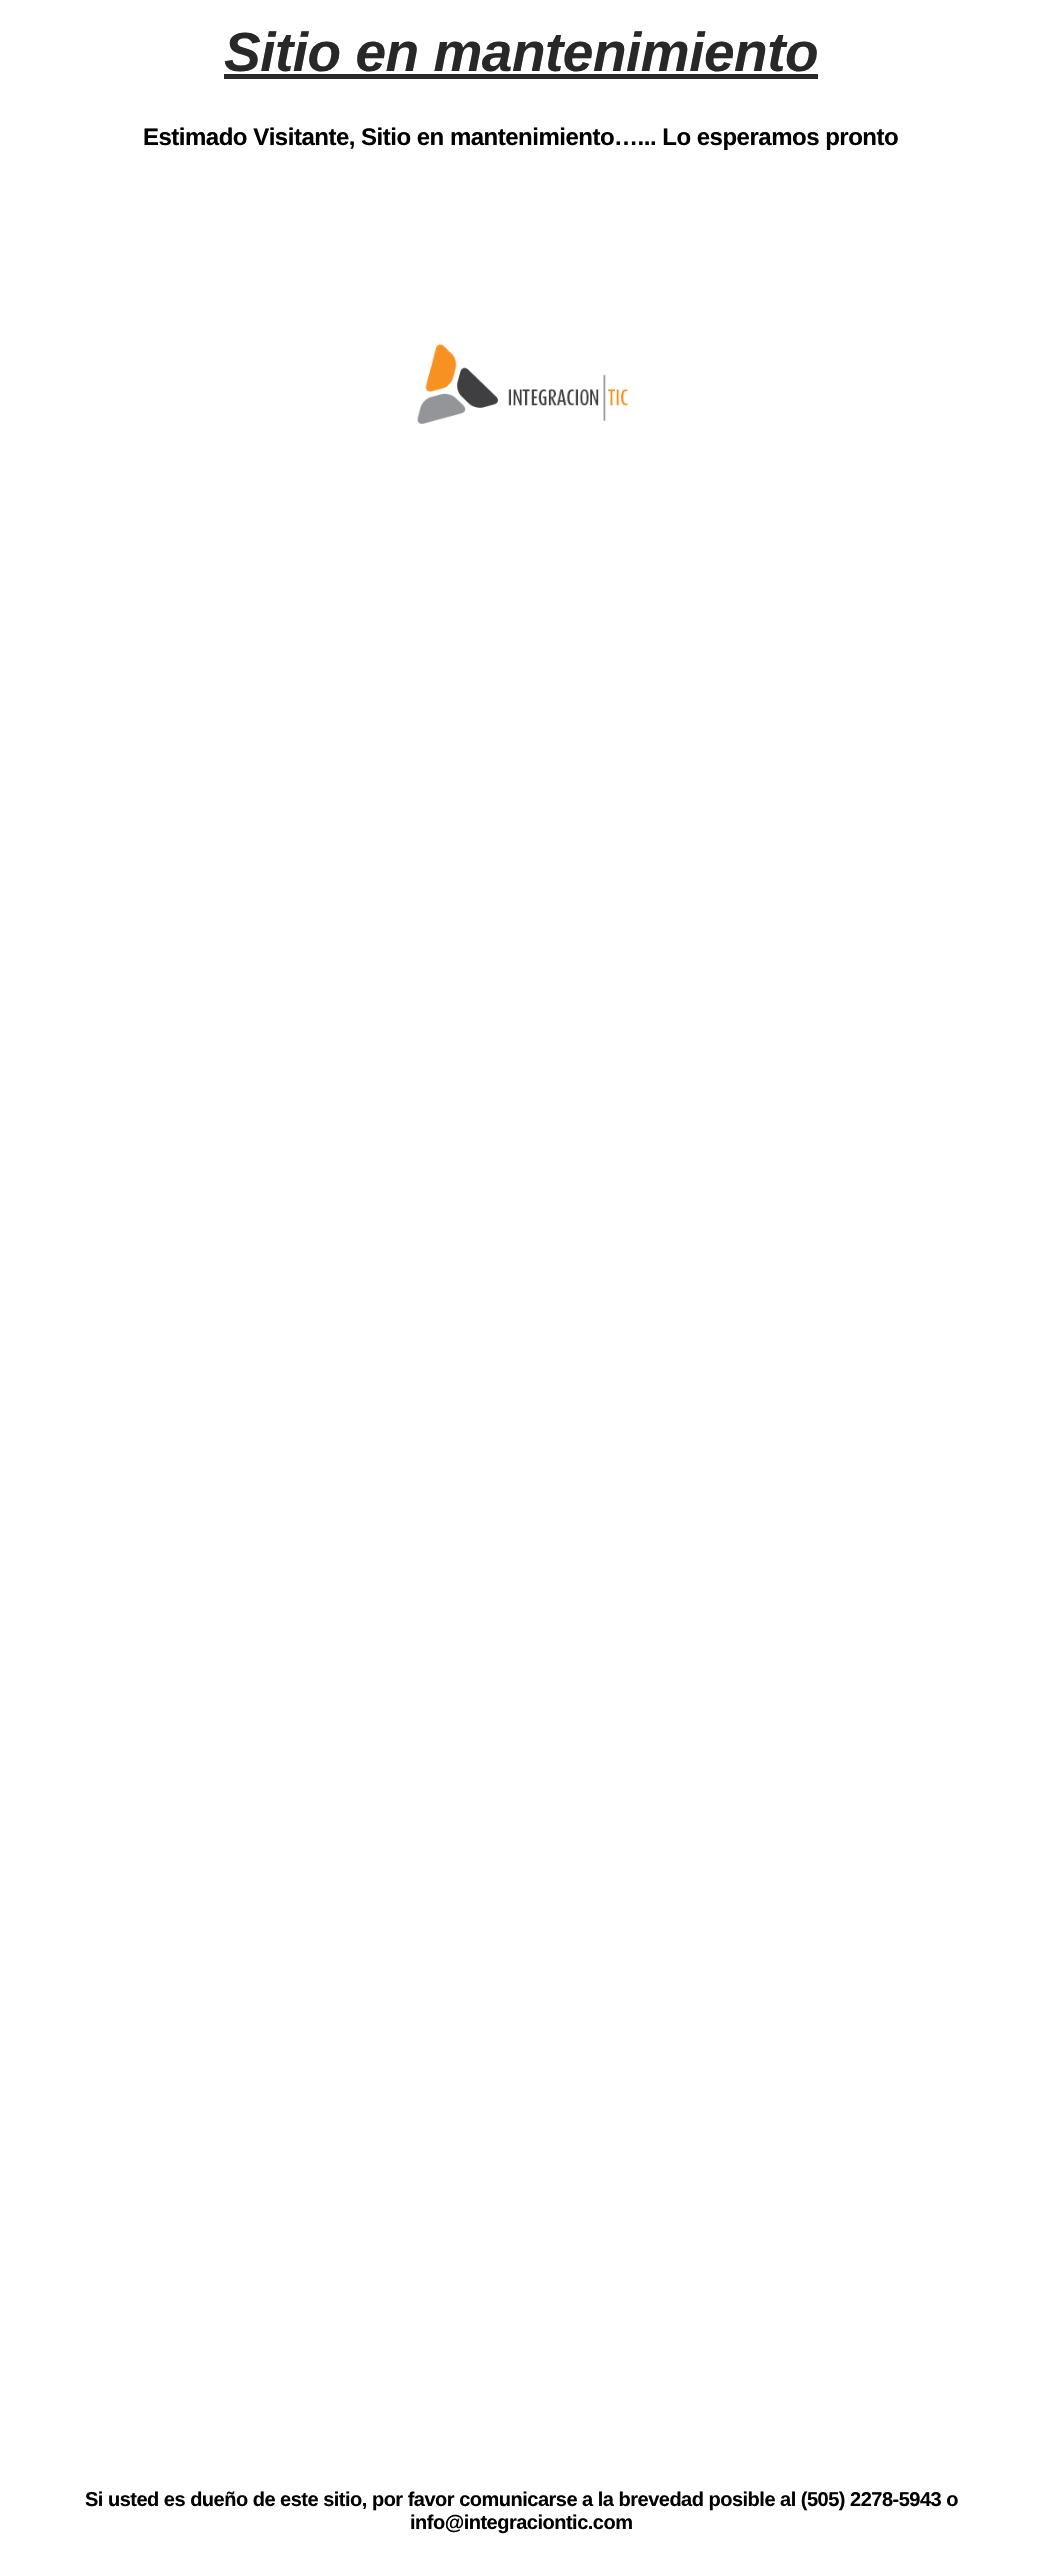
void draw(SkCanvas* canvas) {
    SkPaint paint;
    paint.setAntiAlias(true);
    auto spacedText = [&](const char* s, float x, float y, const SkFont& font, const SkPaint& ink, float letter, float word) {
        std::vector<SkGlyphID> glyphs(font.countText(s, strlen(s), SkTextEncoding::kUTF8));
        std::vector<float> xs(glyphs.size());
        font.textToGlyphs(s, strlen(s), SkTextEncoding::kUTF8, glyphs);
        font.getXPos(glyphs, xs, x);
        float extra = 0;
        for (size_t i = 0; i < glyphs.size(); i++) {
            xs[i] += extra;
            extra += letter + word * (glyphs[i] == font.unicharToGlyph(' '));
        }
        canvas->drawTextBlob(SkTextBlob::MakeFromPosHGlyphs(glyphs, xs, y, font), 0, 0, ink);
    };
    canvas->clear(0xFFFFFFFF);
    SkFont font1(fontMgr->matchFamilyStyle("Liberation Sans", SkFontStyle::BoldItalic()), 55);
    font1.setSubpixel(true);
    paint.setColor(0xFF282828);
    spacedText("Sitio en mantenimiento", 224, 71, font1, paint, -0.5f, 0);
    canvas->drawRect(SkRect::MakeXYWH(224, 74, 594, 5), paint);
    SkFont font2(fontMgr->matchFamilyStyle("Liberation Sans", SkFontStyle::Bold()), 24);
    font2.setSubpixel(true);
    paint.setColor(0xFF000000);
    spacedText("Estimado Visitante, Sitio en mantenimiento…... Lo esperamos pronto", 143, 145, font2, paint, -0.5f, 0);
    canvas->drawImageRect(SkImages::DeferredFromEncodedData(SkData::MakeFromFileName("img1.png")), SkRect::MakeXYWH(417, 344, 212, 80), SkSamplingOptions());
    SkFont font3(fontMgr->matchFamilyStyle("Liberation Sans", SkFontStyle::Bold()), 20);
    font3.setSubpixel(true);
    spacedText("Si usted es dueño de este sitio, por favor comunicarse a la brevedad posible al (505) 2278-5943 o", 85, 2506, font3, paint, -0.5f, 0);
    spacedText("info@integraciontic.com", 410, 2529, font3, paint, -0.5f, 0);
}
